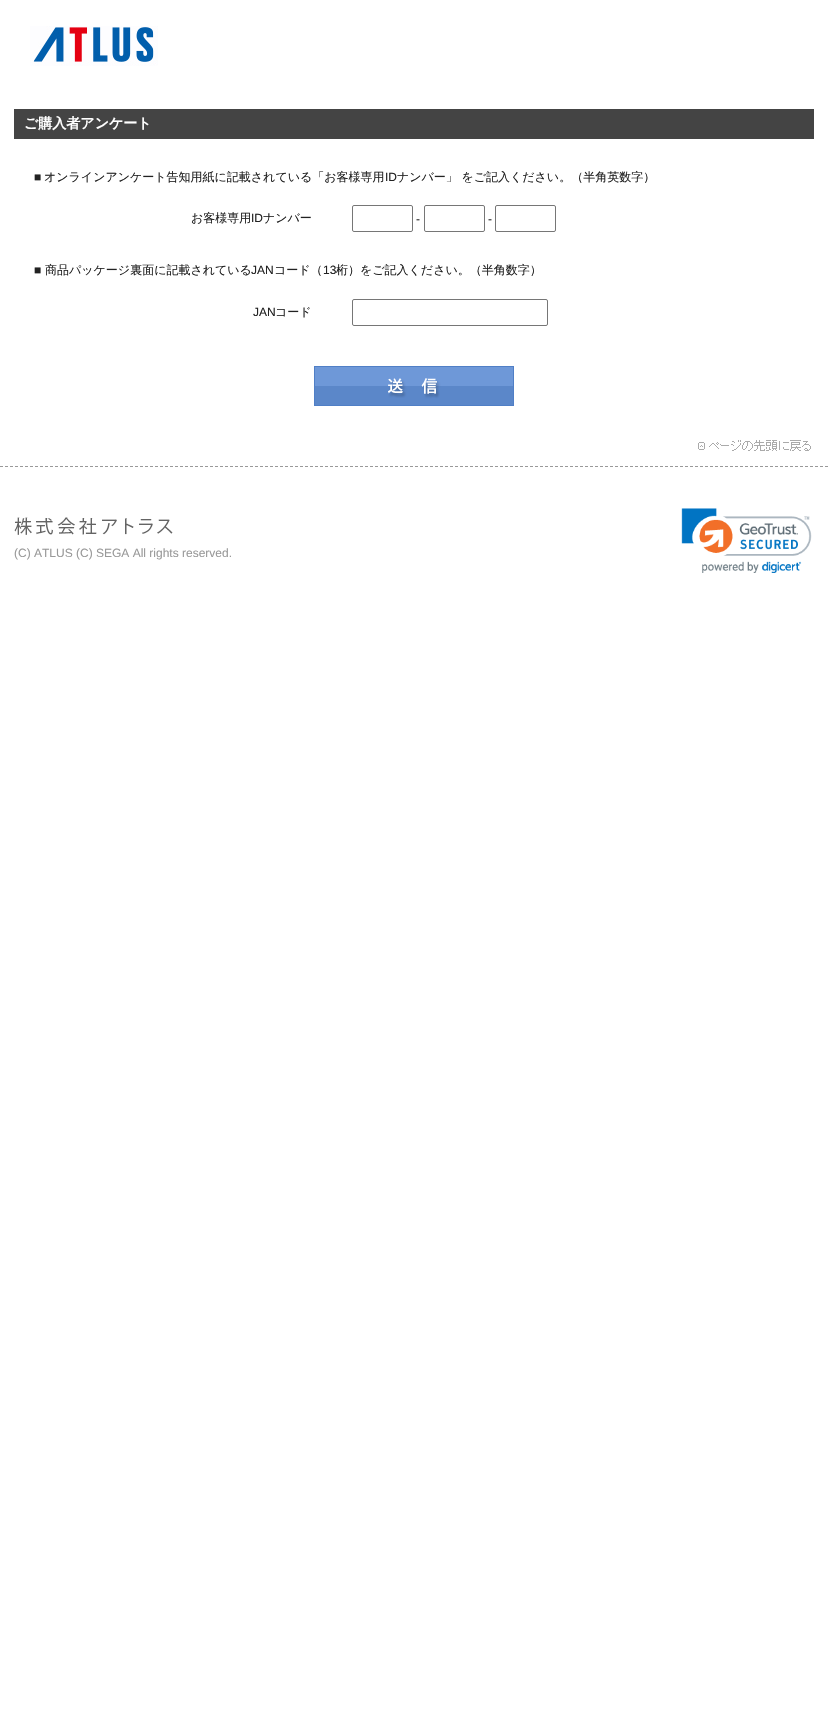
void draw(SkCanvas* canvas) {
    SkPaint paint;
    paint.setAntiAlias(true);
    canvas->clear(0xFFFFFFFF);
    canvas->drawImageRect(SkImages::DeferredFromEncodedData(SkData::MakeFromFileName("img1.png")), SkRect::MakeXYWH(30, 26, 128, 40), SkSamplingOptions());
    paint.setColor(0xFF444444);
    canvas->drawRect(SkRect::MakeXYWH(14, 109, 800, 30), paint);
    SkFont font1(fontMgr->matchFamilyStyle("WenQuanYi Zen Hei", SkFontStyle::Bold()), 14);
    font1.setSubpixel(true);
    paint.setColor(0xFFFFFFFF);
    canvas->drawString("ご購入者アンケート", 24, 128, font1, paint);
    SkFont font2(fontMgr->matchFamilyStyle("Liberation Sans", SkFontStyle::Normal()), 12);
    font2.setSubpixel(true);
    paint.setColor(0xFF222222);
    canvas->drawString("■", 34, 181, font2, paint);
    SkFont font3(fontMgr->matchFamilyStyle("WenQuanYi Zen Hei", SkFontStyle(500, SkFontStyle::kNormal_Width, SkFontStyle::kUpright_Slant)), 12);
    font3.setSubpixel(true);
    canvas->drawString("オンラインアンケート告知用紙に記載されている「お客様専用", 44, 181, font3, paint);
    canvas->drawString("ID", 385, 181, font2, paint);
    canvas->drawString("ナンバー」 をご記入ください。（半角英数字）", 397, 181, font3, paint);
    canvas->drawString("お客様専用", 191, 222, font3, paint);
    canvas->drawString("ID", 251, 222, font2, paint);
    canvas->drawString("ナンバー", 263, 222, font3, paint);
    paint.setStyle(SkPaint::kStroke_Style);
    paint.setStrokeWidth(1);
    paint.setColor(0xFF767676);
    canvas->drawRoundRect(SkRect::MakeXYWH(352.5f, 205.5f, 60, 26), 1.5f, 1.5f, paint);
    paint.setStyle(SkPaint::kFill_Style);
    paint.setColor(0xFF222222);
    canvas->drawString("-", 416, 223, font2, paint);
    paint.setStyle(SkPaint::kStroke_Style);
    paint.setColor(0xFF767676);
    canvas->drawRoundRect(SkRect::MakeXYWH(424.5f, 205.5f, 60, 26), 1.5f, 1.5f, paint);
    paint.setStyle(SkPaint::kFill_Style);
    paint.setColor(0xFF222222);
    canvas->drawString("-", 488, 223, font2, paint);
    paint.setStyle(SkPaint::kStroke_Style);
    paint.setColor(0xFF767676);
    canvas->drawRoundRect(SkRect::MakeXYWH(495.5f, 205.5f, 60, 26), 1.5f, 1.5f, paint);
    paint.setStyle(SkPaint::kFill_Style);
    paint.setColor(0xFF222222);
    canvas->drawString("■", 34, 274, font2, paint);
    canvas->drawString("商品パッケージ裏面に記載されている", 45, 274, font3, paint);
    canvas->drawString("JAN", 251, 274, font2, paint);
    canvas->drawString("コード（", 274, 274, font3, paint);
    canvas->drawString("13", 323, 274, font2, paint);
    canvas->drawString("桁）をご記入ください。（半角数字）", 336, 274, font3, paint);
    canvas->drawString("JAN", 253, 316, font2, paint);
    canvas->drawString("コード", 275, 316, font3, paint);
    paint.setStyle(SkPaint::kStroke_Style);
    paint.setColor(0xFF767676);
    canvas->drawRoundRect(SkRect::MakeXYWH(352.5f, 299.5f, 195, 26), 1.5f, 1.5f, paint);
    canvas->drawImageRect(SkImages::DeferredFromEncodedData(SkData::MakeFromFileName("img2.png")), SkRect::MakeXYWH(314, 366, 200, 40), SkSamplingOptions());
    canvas->drawImageRect(SkImages::DeferredFromEncodedData(SkData::MakeFromFileName("img3.png")), SkRect::MakeXYWH(698, 440, 113, 11), SkSamplingOptions());
    paint.setColor(0xFF999999);
    paint.setPathEffect(SkDashPathEffect::Make({{3, 2}}, 0));
    canvas->drawPath(SkPathBuilder().moveTo(0, 466.5f).lineTo(828, 466.5f).detach(), paint);
    paint.setPathEffect(nullptr);
    canvas->drawImageRect(SkImages::DeferredFromEncodedData(SkData::MakeFromFileName("img4.png")), SkRect::MakeXYWH(14, 517, 159, 18), SkSamplingOptions());
    paint.setStyle(SkPaint::kFill_Style);
    canvas->drawString("(C) ATLUS (C) SEGA All rights reserved.", 14, 557, font2, paint);
    canvas->drawImageRect(SkImages::DeferredFromEncodedData(SkData::MakeFromFileName("img5.png")), SkRect::MakeXYWH(681, 508, 131, 65), SkSamplingOptions());
}
